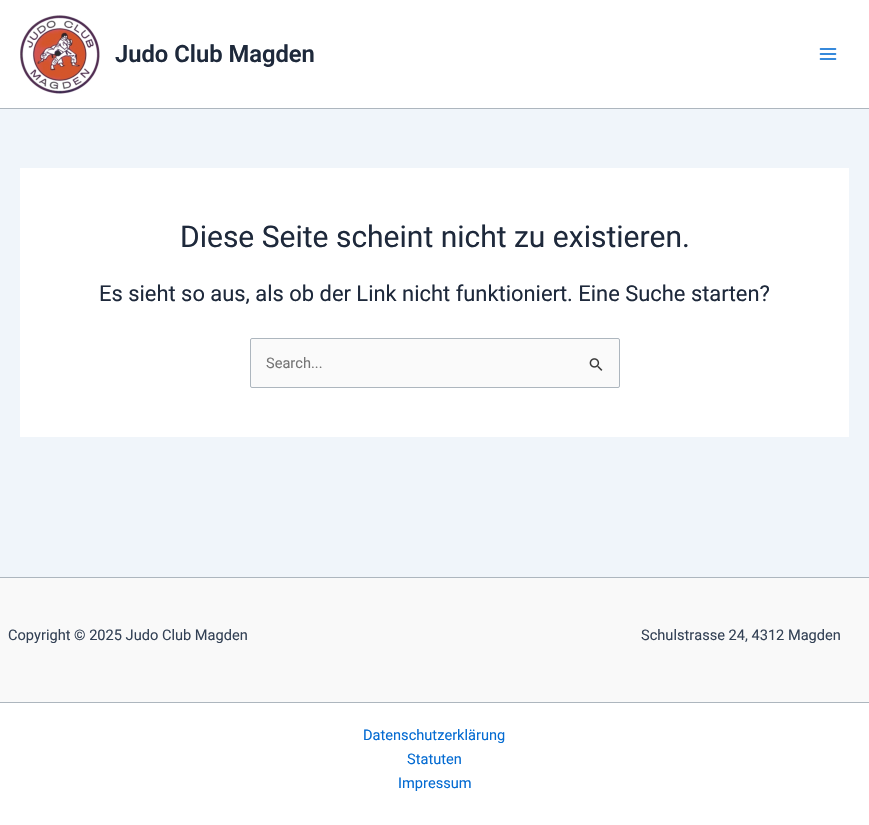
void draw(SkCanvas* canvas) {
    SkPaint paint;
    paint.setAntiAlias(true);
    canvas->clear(0xFFF0F5FA);
    paint.setColor(0xFFFFFFFF);
    canvas->drawRect(SkRect::MakeXYWH(0, 0, 869, 108), paint);
    paint.setColor(0xFFADB6BE);
    canvas->drawRect(SkRect::MakeXYWH(0, 108, 869, 1), paint);
    canvas->drawImageRect(SkImages::DeferredFromEncodedData(SkData::MakeFromFileName("img1.png")), SkRect::MakeXYWH(20, 15, 80, 79), SkSamplingOptions());
    SkFont font1(fontMgr->matchFamilyStyle("Roboto", SkFontStyle(600, SkFontStyle::kNormal_Width, SkFontStyle::kUpright_Slant)), 23.75f);
    font1.setSubpixel(true);
    paint.setColor(0xFF1E293B);
    canvas->drawString("Judo Club Magden", 115, 62, font1, paint);
    canvas->drawImageRect(SkImages::DeferredFromEncodedData(SkData::MakeFromFileName("img2.png")), SkRect::MakeXYWH(819, 48, 18, 12), SkSamplingOptions());
    paint.setColor(0xFFFFFFFF);
    canvas->drawRect(SkRect::MakeXYWH(20, 168, 829, 269), paint);
    SkFont font2(fontMgr->matchFamilyStyle("Roboto", SkFontStyle::Normal()), 30);
    font2.setSubpixel(true);
    paint.setColor(0xFF1E293B);
    canvas->drawString("Diese Seite scheint nicht zu existieren.", 180, 247, font2, paint);
    SkFont font3(fontMgr->matchFamilyStyle("Roboto", SkFontStyle::Normal()), 21.9f);
    font3.setSubpixel(true);
    canvas->drawString("Es sieht so aus, als ob der Link nicht funktioniert. Eine Suche starten?", 99, 301, font3, paint);
    paint.setColor(0xFFFAFAFA);
    canvas->drawRoundRect(SkRect::MakeXYWH(250.5f, 338.5f, 369, 49), 1.5f, 1.5f, paint);
    paint.setStyle(SkPaint::kStroke_Style);
    paint.setStrokeWidth(1);
    paint.setColor(0xFFADB6BE);
    canvas->drawRoundRect(SkRect::MakeXYWH(250.5f, 338.5f, 369, 49), 1.5f, 1.5f, paint);
    SkFont font4(fontMgr->matchFamilyStyle("Roboto", SkFontStyle::Normal()), 14.6f);
    font4.setSubpixel(true);
    paint.setStyle(SkPaint::kFill_Style);
    paint.setColor(0xFF757575);
    canvas->drawString("Search...", 266, 368, font4, paint);
    canvas->drawImageRect(SkImages::DeferredFromEncodedData(SkData::MakeFromFileName("img3.png")), SkRect::MakeXYWH(589, 358, 14, 13), SkSamplingOptions());
    paint.setColor(0xFFF9F9F9);
    canvas->drawRect(SkRect::MakeXYWH(0, 578, 869, 124), paint);
    paint.setColor(0xFFADB6BE);
    canvas->drawRect(SkRect::MakeXYWH(0, 577, 869, 1), paint);
    paint.setColor(0xFF334155);
    canvas->drawString("Copyright © 2025 Judo Club Magden", 8, 640, font4, paint);
    canvas->drawString("Schulstrasse 24, 4312 Magden", 641, 640, font4, paint);
    paint.setColor(0xFFFFFFFF);
    canvas->drawRect(SkRect::MakeXYWH(0, 703, 869, 122), paint);
    paint.setColor(0xFFADB6BE);
    canvas->drawRect(SkRect::MakeXYWH(0, 702, 869, 1), paint);
    paint.setColor(0xFF046BD2);
    canvas->drawString("Datenschutzerklärung", 363, 740, font4, paint);
    canvas->drawString("Statuten", 407, 764, font4, paint);
    canvas->drawString("Impressum", 398, 788, font4, paint);
}
